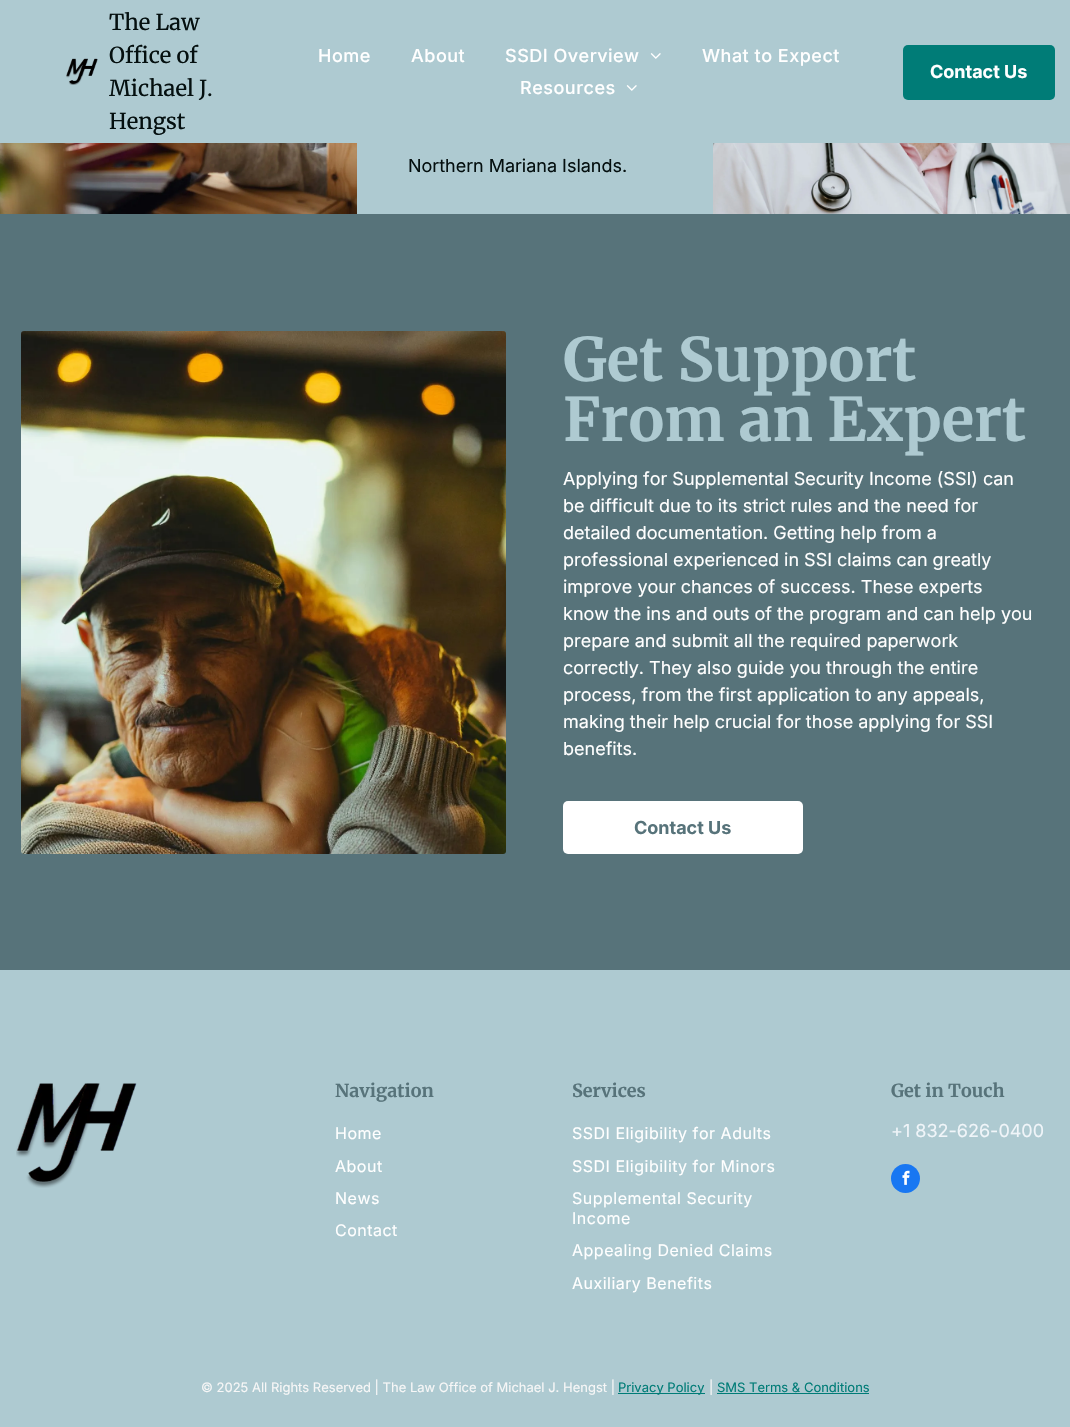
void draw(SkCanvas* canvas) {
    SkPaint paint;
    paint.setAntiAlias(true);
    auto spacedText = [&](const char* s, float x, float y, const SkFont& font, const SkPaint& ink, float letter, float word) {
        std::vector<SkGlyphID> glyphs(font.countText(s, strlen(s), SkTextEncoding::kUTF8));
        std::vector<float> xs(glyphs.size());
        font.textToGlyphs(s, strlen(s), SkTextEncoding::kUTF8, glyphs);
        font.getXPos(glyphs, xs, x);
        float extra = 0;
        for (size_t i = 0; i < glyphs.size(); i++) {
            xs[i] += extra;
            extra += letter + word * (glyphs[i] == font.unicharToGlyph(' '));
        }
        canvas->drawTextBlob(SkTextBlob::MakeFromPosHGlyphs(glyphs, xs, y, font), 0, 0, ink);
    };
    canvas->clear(0xFFAECAD1);
    canvas->drawImageRect(SkImages::DeferredFromEncodedData(SkData::MakeFromFileName("img1.png")), SkRect::MakeXYWH(66, 58, 32, 27), SkSamplingOptions());
    SkFont font1(fontMgr->matchFamilyStyle("Merriweather", SkFontStyle::Normal()), 22);
    font1.setSubpixel(true);
    paint.setColor(0xFF040F0F);
    canvas->drawString("The Law", 109, 30, font1, paint);
    canvas->drawString("Office of", 109, 63, font1, paint);
    canvas->drawString("Michael J.", 109, 96, font1, paint);
    canvas->drawString("Hengst", 109, 129, font1, paint);
    SkFont font2(fontMgr->matchFamilyStyle("Inter", SkFontStyle(500, SkFontStyle::kNormal_Width, SkFontStyle::kUpright_Slant)), 18);
    font2.setSubpixel(true);
    paint.setColor(0xFFFFFFFF);
    spacedText("Home", 318, 62, font2, paint, 0.5f, 0);
    spacedText("About", 411, 62, font2, paint, 0.5f, 0);
    spacedText("SSDI Overview", 505, 62, font2, paint, 0.5f, 0);
    canvas->drawImageRect(SkImages::DeferredFromEncodedData(SkData::MakeFromFileName("img2.png")), SkRect::MakeXYWH(650, 53, 11, 6), SkSamplingOptions());
    spacedText("What to Expect", 702, 62, font2, paint, 0.5f, 0);
    spacedText("Resources", 520, 94, font2, paint, 0.5f, 0);
    canvas->drawImageRect(SkImages::DeferredFromEncodedData(SkData::MakeFromFileName("img2.png")), SkRect::MakeXYWH(626, 85, 11, 6), SkSamplingOptions());
    paint.setColor(0xFF007C77);
    canvas->drawRoundRect(SkRect::MakeXYWH(903, 45, 152, 55), 5, 5, paint);
    SkFont font3(fontMgr->matchFamilyStyle("Inter", SkFontStyle::Bold()), 18);
    font3.setSubpixel(true);
    paint.setColor(0xFFFFFFFF);
    canvas->drawString("Contact Us", 930, 78, font3, paint);
    canvas->drawImageRect(SkImages::DeferredFromEncodedData(SkData::MakeFromFileName("img3.png")), SkRect::MakeXYWH(0, 143, 357, 71), SkSamplingOptions());
    SkFont font4(fontMgr->matchFamilyStyle("Inter", SkFontStyle::Normal()), 18);
    font4.setSubpixel(true);
    paint.setColor(0xFF040F0F);
    canvas->drawString("Northern Mariana Islands.", 408, 172, font4, paint);
    canvas->drawImageRect(SkImages::DeferredFromEncodedData(SkData::MakeFromFileName("img4.png")), SkRect::MakeXYWH(713, 143, 357, 71), SkSamplingOptions());
    paint.setColor(0xFF57737A);
    canvas->drawRect(SkRect::MakeXYWH(0, 214, 1070, 756), paint);
    canvas->drawImageRect(SkImages::DeferredFromEncodedData(SkData::MakeFromFileName("img5.png")), SkRect::MakeXYWH(21, 331, 485, 523), SkSamplingOptions());
    SkFont font5(fontMgr->matchFamilyStyle("Merriweather", SkFontStyle::Bold()), 60);
    font5.setSubpixel(true);
    paint.setColor(0xFFAECAD1);
    canvas->drawString("Get Support", 563, 381, font5, paint);
    canvas->drawString("From an Expert", 563, 441, font5, paint);
    paint.setColor(0xFFFFFFFF);
    canvas->drawString("Applying for Supplemental Security Income (SSI) can", 563, 485, font4, paint);
    canvas->drawString("be difficult due to its strict rules and the need for", 563, 512, font4, paint);
    canvas->drawString("detailed documentation. Getting help from a", 563, 539, font4, paint);
    canvas->drawString("professional experienced in SSI claims can greatly", 563, 566, font4, paint);
    canvas->drawString("improve your chances of success. These experts", 563, 593, font4, paint);
    canvas->drawString("know the ins and outs of the program and can help you", 563, 620, font4, paint);
    canvas->drawString("prepare and submit all the required paperwork", 563, 647, font4, paint);
    canvas->drawString("correctly. They also guide you through the entire", 563, 674, font4, paint);
    canvas->drawString("process, from the first application to any appeals,", 563, 701, font4, paint);
    canvas->drawString("making their help crucial for those applying for SSI", 563, 728, font4, paint);
    canvas->drawString("benefits.", 563, 755, font4, paint);
    canvas->drawRoundRect(SkRect::MakeXYWH(563, 801, 240, 53), 5, 5, paint);
    paint.setColor(0xFF57737A);
    canvas->drawString("Contact Us", 634, 834, font3, paint);
    canvas->drawImageRect(SkImages::DeferredFromEncodedData(SkData::MakeFromFileName("img6.png")), SkRect::MakeXYWH(16, 1083, 121, 105), SkSamplingOptions());
    SkFont font6(fontMgr->matchFamilyStyle("Merriweather", SkFontStyle::Bold()), 18);
    font6.setSubpixel(true);
    canvas->drawString("Navigation", 335, 1097, font6, paint);
    SkFont font7(fontMgr->matchFamilyStyle("Inter", SkFontStyle::Normal()), 16);
    font7.setSubpixel(true);
    paint.setColor(0xFFFFFFFF);
    spacedText("Home", 335, 1139, font7, paint, 0.5f, 0);
    spacedText("About", 335, 1172, font7, paint, 0.5f, 0);
    spacedText("News", 335, 1204, font7, paint, 0.5f, 0);
    spacedText("Contact", 335, 1236, font7, paint, 0.5f, 0);
    paint.setColor(0xFF57737A);
    canvas->drawString("Services", 572, 1097, font6, paint);
    paint.setColor(0xFFFFFFFF);
    spacedText("SSDI Eligibility for Adults", 572, 1139, font7, paint, 0.5f, 0);
    spacedText("SSDI Eligibility for Minors", 572, 1172, font7, paint, 0.5f, 0);
    spacedText("Supplemental Security", 572, 1204, font7, paint, 0.5f, 0);
    spacedText("Income", 572, 1224, font7, paint, 0.5f, 0);
    spacedText("Appealing Denied Claims", 572, 1256, font7, paint, 0.5f, 0);
    spacedText("Auxiliary Benefits", 572, 1289, font7, paint, 0.5f, 0);
    paint.setColor(0xFF57737A);
    canvas->drawString("Get in Touch", 891, 1097, font6, paint);
    paint.setColor(0xFFF0F5F9);
    canvas->drawString("+1 832-626-0400", 891, 1137, font4, paint);
    paint.setColor(0xFF1877F2);
    canvas->drawCircle(905.5f, 1178.5f, 14.5f, paint);
    canvas->drawImageRect(SkImages::DeferredFromEncodedData(SkData::MakeFromFileName("img7.png")), SkRect::MakeXYWH(902, 1170, 8, 15), SkSamplingOptions());
    SkFont font8(fontMgr->matchFamilyStyle("Inter", SkFontStyle::Normal()), 13);
    font8.setSubpixel(true);
    paint.setColor(0xFFF7F7F7);
    canvas->drawString("© 2025 All Rights Reserved | The Law Office of Michael J. Hengst |", 201, 1392, font8, paint);
    paint.setColor(0xFF007C77);
    canvas->drawRect(SkRect::MakeXYWH(618, 1393, 87, 1), paint);
    canvas->drawString("Privacy Policy", 618, 1392, font8, paint);
    paint.setColor(0xFFF7F7F7);
    canvas->drawString("|", 709, 1392, font8, paint);
    paint.setColor(0xFF007C77);
    canvas->drawString("SMS Terms & Conditions", 717, 1392, font8, paint);
    canvas->drawRect(SkRect::MakeXYWH(717, 1393, 152, 1), paint);
}
